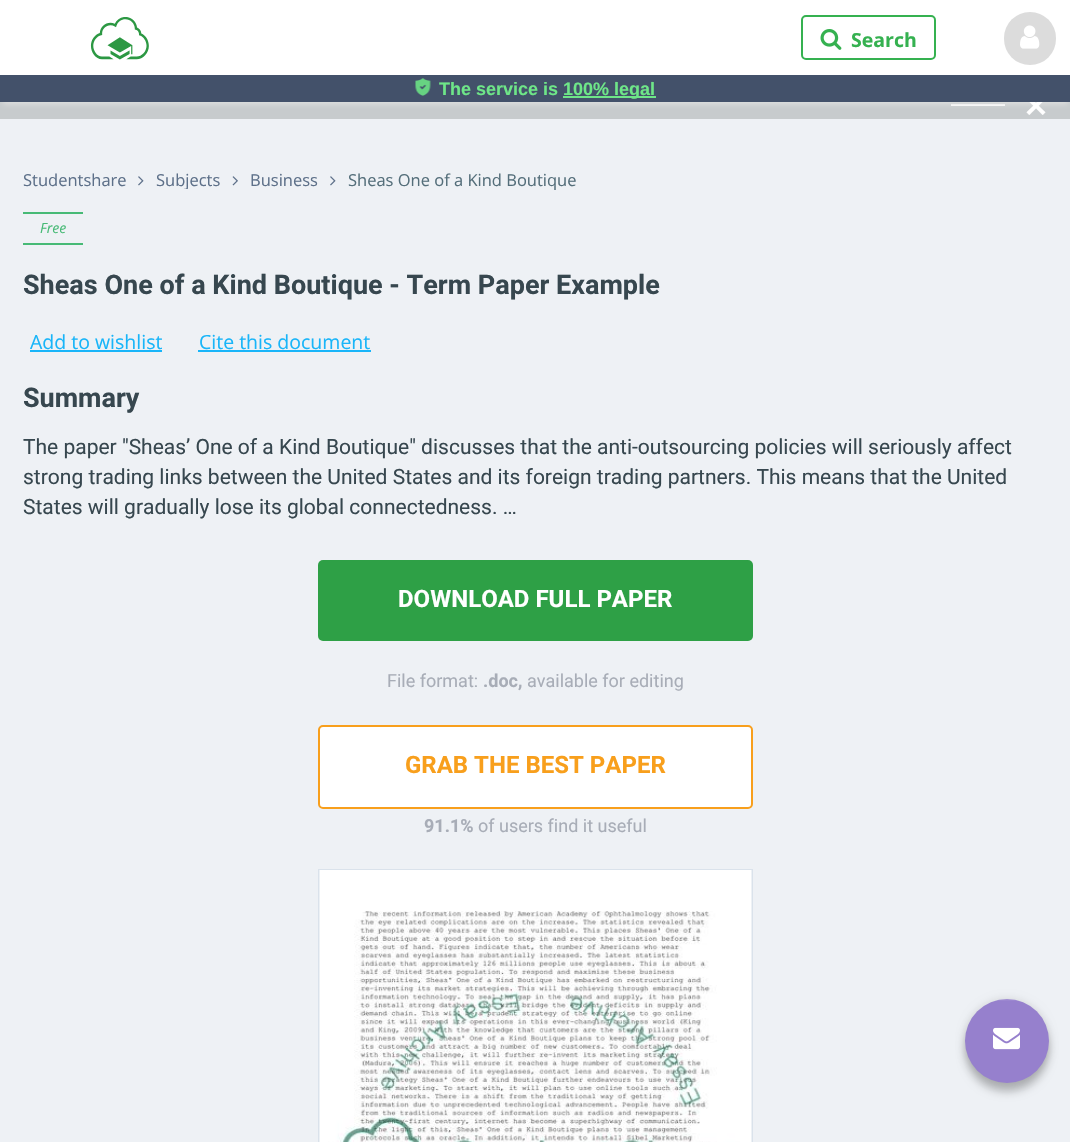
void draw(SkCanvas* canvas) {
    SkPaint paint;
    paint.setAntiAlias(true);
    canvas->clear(0xFFEEF1F5);
    paint.setColor(0xFFC7CBCD);
    canvas->drawRect(SkRect::MakeXYWH(0, 102, 1070, 17), paint);
    paint.setColor(0xFFFFFFFF);
    canvas->drawRect(SkRect::MakeXYWH(951, 104, 54, 2), paint);
    paint.setColor(0xFFE1E1E1);
    paint.setMaskFilter(SkMaskFilter::MakeBlur(kNormal_SkBlurStyle, 3));
    canvas->drawRect(SkRect::MakeXYWH(3, 8, 1065, 96), paint);
    paint.setMaskFilter(nullptr);
    paint.setColor(0xFFFFFFFF);
    canvas->drawRect(SkRect::MakeXYWH(0, 0, 1070, 75), paint);
    canvas->drawImageRect(SkImages::DeferredFromEncodedData(SkData::MakeFromFileName("img1.png")), SkRect::MakeXYWH(90, 17, 59, 43), SkSamplingOptions());
    paint.setStyle(SkPaint::kStroke_Style);
    paint.setStrokeWidth(2);
    paint.setColor(0xFF35B150);
    canvas->drawRoundRect(SkRect::MakeXYWH(802, 16, 133, 43), 4, 4, paint);
    canvas->drawImageRect(SkImages::DeferredFromEncodedData(SkData::MakeFromFileName("img2.png")), SkRect::MakeXYWH(820, 29, 22, 21), SkSamplingOptions());
    SkFont font1(fontMgr->matchFamilyStyle("Open Sans", SkFontStyle::Bold()), 19.5f);
    font1.setSubpixel(true);
    paint.setStyle(SkPaint::kFill_Style);
    canvas->drawString("Search", 851, 47, font1, paint);
    paint.setColor(0xFFDCDCDC);
    canvas->drawRoundRect(SkRect::MakeXYWH(1004, 12, 52, 53), 26, 26, paint);
    canvas->drawImageRect(SkImages::DeferredFromEncodedData(SkData::MakeFromFileName("img3.png")), SkRect::MakeXYWH(1020, 25, 20, 24), SkSamplingOptions());
    SkFont font2(fontMgr->matchFamilyStyle("DejaVu Sans", SkFontStyle::Bold()), 30);
    font2.setSubpixel(true);
    paint.setColor(0xFFFFFFFF);
    canvas->drawString("✕", 1023, 117, font2, paint);
    paint.setColor(0xFF43516A);
    canvas->drawRect(SkRect::MakeXYWH(0, 75, 1070, 27), paint);
    canvas->drawImageRect(SkImages::DeferredFromEncodedData(SkData::MakeFromFileName("img4.png")), SkRect::MakeXYWH(415, 78, 16, 18), SkSamplingOptions());
    SkFont font3(fontMgr->matchFamilyStyle("Liberation Sans", SkFontStyle::Bold()), 18);
    font3.setSubpixel(true);
    paint.setColor(0xFF6EE688);
    canvas->drawString("The service is", 439, 95, font3, paint);
    canvas->drawRect(SkRect::MakeXYWH(563, 96, 93, 2), paint);
    canvas->drawString("100% legal", 563, 95, font3, paint);
    SkFont font4(fontMgr->matchFamilyStyle("Open Sans", SkFontStyle::Normal()), 16.5f);
    font4.setSubpixel(true);
    paint.setColor(0xFF5D7089);
    canvas->drawString("Studentshare", 23, 186, font4, paint);
    canvas->drawImageRect(SkImages::DeferredFromEncodedData(SkData::MakeFromFileName("img5.png")), SkRect::MakeXYWH(138, 176, 6, 10), SkSamplingOptions());
    canvas->save();
    canvas->clipRect(SkRect::MakeXYWH(23, 171, 1026, 18));
    canvas->drawString("Subjects", 156, 186, font4, paint);
    canvas->restore();
    canvas->drawImageRect(SkImages::DeferredFromEncodedData(SkData::MakeFromFileName("img6.png")), SkRect::MakeXYWH(232, 176, 6, 10), SkSamplingOptions());
    canvas->drawString("Business", 250, 186, font4, paint);
    canvas->drawImageRect(SkImages::DeferredFromEncodedData(SkData::MakeFromFileName("img5.png")), SkRect::MakeXYWH(330, 176, 6, 10), SkSamplingOptions());
    paint.setColor(0xFF546E7A);
    canvas->drawString("Sheas One of a Kind Boutique", 348, 186, font4, paint);
    paint.setColor(0xFF47BA76);
    canvas->drawRect(SkRect::MakeXYWH(23, 212, 60, 2), paint);
    canvas->drawRect(SkRect::MakeXYWH(23, 243, 60, 2), paint);
    SkFont font5(fontMgr->matchFamilyStyle("Open Sans", SkFontStyle::Italic()), 14);
    font5.setSubpixel(true);
    canvas->drawString("Free", 40, 233, font5, paint);
    SkFont font6(fontMgr->matchFamilyStyle("Roboto", SkFontStyle::Bold()), 27);
    font6.setSubpixel(true);
    paint.setColor(0xFF37474F);
    canvas->drawString("Sheas One of a Kind Boutique - Term Paper Example", 23, 294, font6, paint);
    SkFont font7(fontMgr->matchFamilyStyle("Open Sans", SkFontStyle::Normal()), 19.5f);
    font7.setSubpixel(true);
    paint.setColor(0xFF18B5F9);
    canvas->drawString("Add to wishlist", 30, 349, font7, paint);
    canvas->drawRect(SkRect::MakeXYWH(30, 350, 132, 2), paint);
    canvas->drawString("Cite this document", 199, 349, font7, paint);
    canvas->drawRect(SkRect::MakeXYWH(198, 350, 173, 2), paint);
    paint.setColor(0xFF37474F);
    canvas->drawString("Summary", 23, 407, font6, paint);
    SkFont font8(fontMgr->matchFamilyStyle("Roboto", SkFontStyle::Normal()), 21);
    font8.setSubpixel(true);
    canvas->drawString("The paper \"Sheas’ One of a Kind Boutique\" discusses that the anti-outsourcing policies will seriously affect", 23, 454, font8, paint);
    canvas->drawString("strong trading links between the United States and its foreign trading partners. This means that the United", 23, 484, font8, paint);
    canvas->drawString("States will gradually lose its global connectedness. …", 23, 514, font8, paint);
    paint.setColor(0xFF2EA046);
    canvas->drawRoundRect(SkRect::MakeXYWH(318, 560, 435, 81), 5, 5, paint);
    SkFont font9(fontMgr->matchFamilyStyle("Roboto", SkFontStyle::Bold()), 24);
    font9.setSubpixel(true);
    paint.setColor(0xFFFFFFFF);
    canvas->drawString("DOWNLOAD FULL PAPER", 398, 607, font9, paint);
    SkFont font10(fontMgr->matchFamilyStyle("Roboto", SkFontStyle::Normal()), 18);
    font10.setSubpixel(true);
    paint.setColor(0xFFA8ADB7);
    canvas->drawString("File format:", 387, 687, font10, paint);
    SkFont font11(fontMgr->matchFamilyStyle("Roboto", SkFontStyle::Bold()), 18);
    font11.setSubpixel(true);
    canvas->drawString(".doc,", 483, 687, font11, paint);
    canvas->drawString("available for editing", 527, 687, font10, paint);
    paint.setColor(0xFFFFFFFF);
    canvas->drawRoundRect(SkRect::MakeXYWH(319, 726, 433, 82), 4, 4, paint);
    paint.setStyle(SkPaint::kStroke_Style);
    paint.setColor(0xFFF89F1C);
    canvas->drawRoundRect(SkRect::MakeXYWH(319, 726, 433, 82), 4, 4, paint);
    paint.setStyle(SkPaint::kFill_Style);
    canvas->drawString("GRAB THE BEST PAPER", 405, 773, font9, paint);
    paint.setColor(0xFFA8ADB7);
    canvas->drawString("91.1%", 424, 832, font11, paint);
    canvas->drawString("of users find it useful", 478, 832, font10, paint);
    paint.setStyle(SkPaint::kStroke_Style);
    paint.setColor(0xFFDAE2EB);
    canvas->drawRect(SkRect::MakeXYWH(319, 870, 433, 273), paint);
    canvas->drawImageRect(SkImages::DeferredFromEncodedData(SkData::MakeFromFileName("img7.png")), SkRect::MakeXYWH(319, 870, 433, 272), SkSamplingOptions());
    paint.setStyle(SkPaint::kFill_Style);
    paint.setColor(0x1F000000);
    paint.setMaskFilter(SkMaskFilter::MakeBlur(kNormal_SkBlurStyle, 4.5f));
    canvas->drawRoundRect(SkRect::MakeXYWH(965, 999, 84, 84), 42, 42, paint);
    paint.setMaskFilter(nullptr);
    paint.setColor(0x3D000000);
    paint.setMaskFilter(SkMaskFilter::MakeBlur(kNormal_SkBlurStyle, 4.5f));
    canvas->drawRoundRect(SkRect::MakeXYWH(965, 1008, 84, 84), 42, 42, paint);
    paint.setMaskFilter(nullptr);
    paint.setColor(0xFF9680CD);
    canvas->drawCircle(1007, 1041, 42, paint);
    canvas->drawImageRect(SkImages::DeferredFromEncodedData(SkData::MakeFromFileName("img8.png")), SkRect::MakeXYWH(996, 999, 22, 2), SkSamplingOptions());
    canvas->drawImageRect(SkImages::DeferredFromEncodedData(SkData::MakeFromFileName("img9.png")), SkRect::MakeXYWH(993, 1027, 27, 23), SkSamplingOptions());
}
